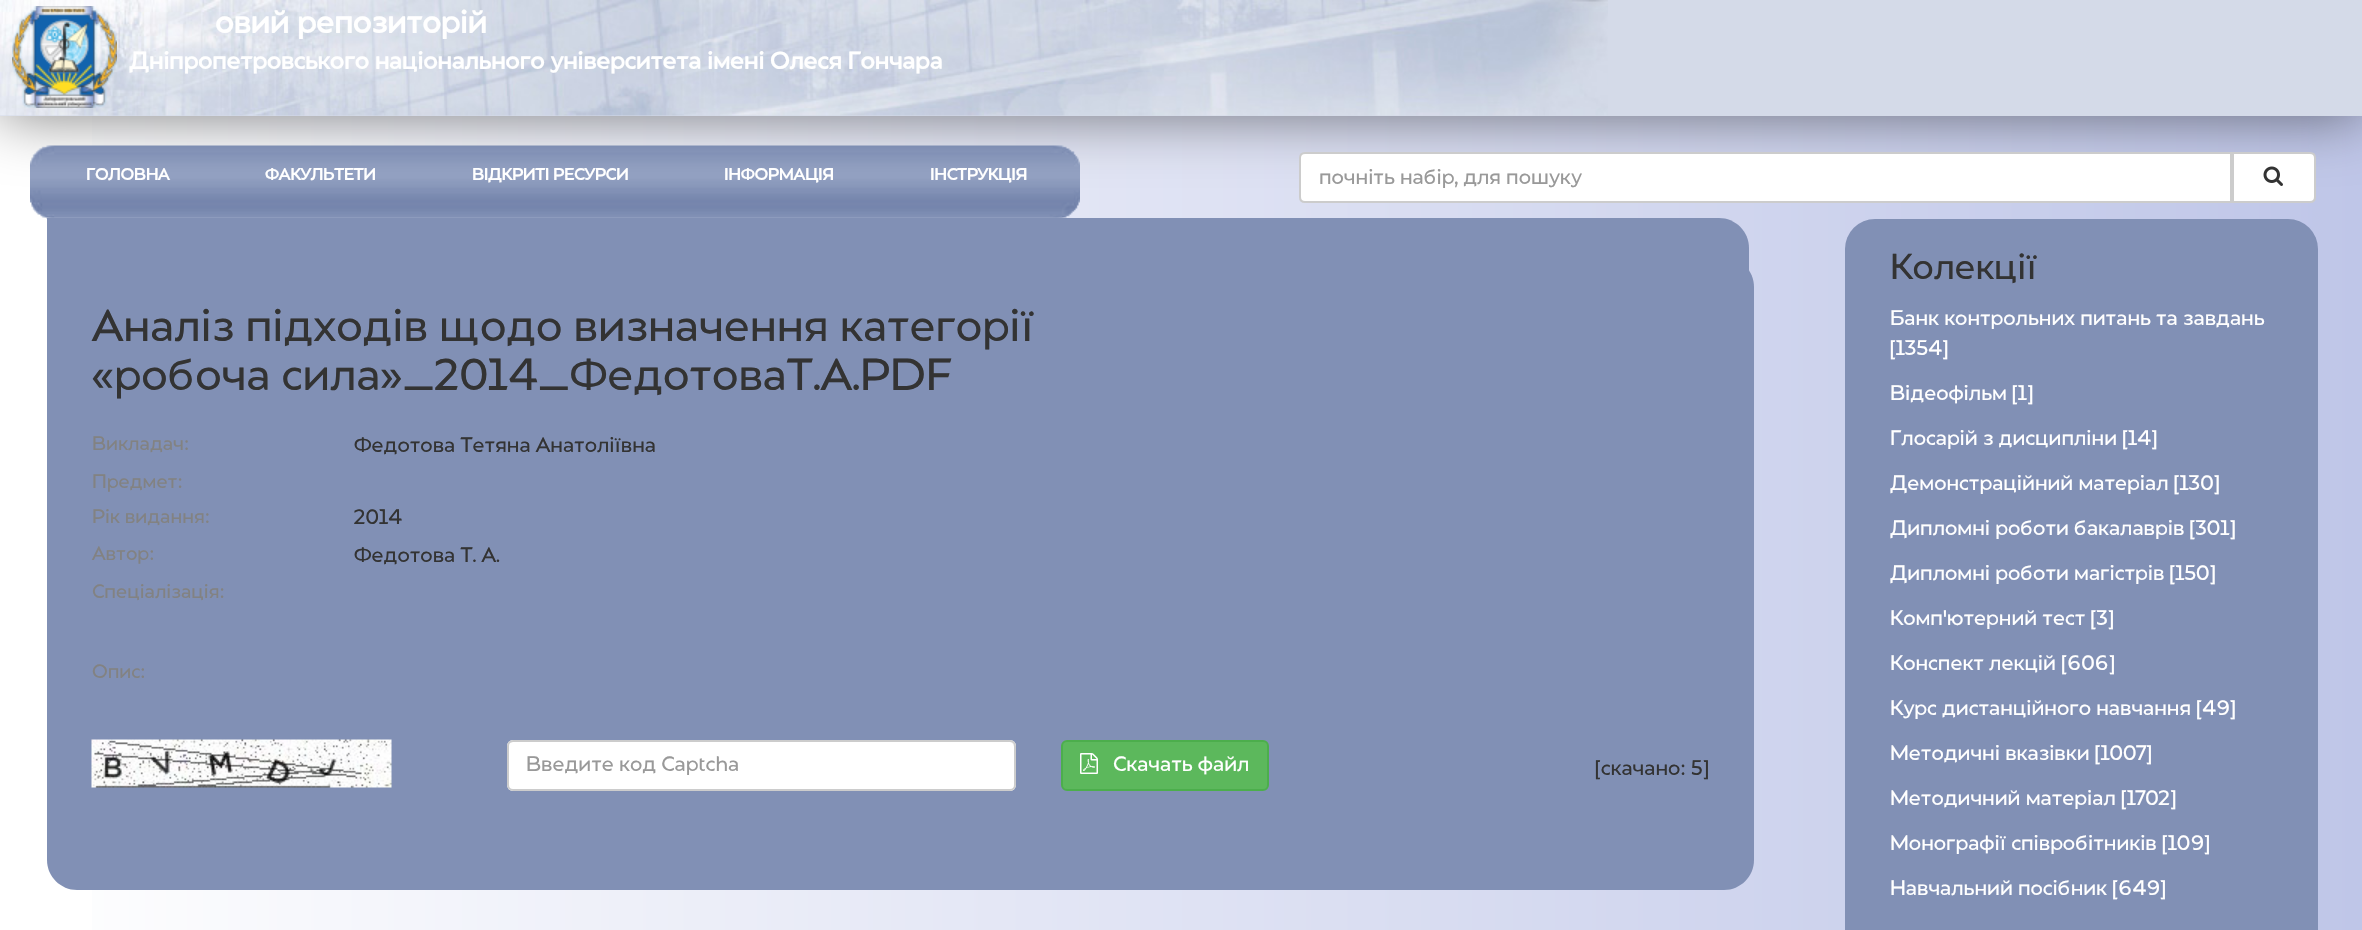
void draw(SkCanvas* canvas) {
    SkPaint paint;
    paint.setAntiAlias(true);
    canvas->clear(0xFFFFFFFF);
    {
        const SkColor colors[] = {0xFFFFFFFF, 0xFFBFC6E8};
        const float stops[] = {0, 1};
        const SkPoint ends[] = {{0, 465}, {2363, 465}};
        paint.setShader(SkGradientShader::MakeLinear(ends, colors, stops, 2, SkTileMode::kClamp));
        paint.setAlpha(255);
    }
    canvas->drawRect(SkRect::MakeXYWH(92, 116, 2270, 814), paint);
    paint.setShader(nullptr);
    paint.setColor(0x80000000);
    paint.setMaskFilter(SkMaskFilter::MakeBlur(kNormal_SkBlurStyle, 30));
    canvas->drawRect(SkRect::MakeXYWH(0, 0, 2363, 116), paint);
    paint.setMaskFilter(nullptr);
    paint.setColor(0xFFD4DAE8);
    canvas->drawRect(SkRect::MakeXYWH(0, 0, 2362, 116), paint);
    canvas->drawImageRect(SkImages::DeferredFromEncodedData(SkData::MakeFromFileName("img1.png")), SkRect::MakeXYWH(0, 0, 1608, 116), SkSamplingOptions());
    canvas->drawImageRect(SkImages::DeferredFromEncodedData(SkData::MakeFromFileName("img2.png")), SkRect::MakeXYWH(12, 6, 105, 102), SkSamplingOptions());
    SkFont font1(fontMgr->matchFamilyStyle("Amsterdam", SkFontStyle::Bold()), 31.5f);
    font1.setSubpixel(true);
    paint.setColor(0xFFFFFFFF);
    canvas->drawString("овий репозиторій", 215, 33, font1, paint);
    SkFont font2(fontMgr->matchFamilyStyle("Amsterdam", SkFontStyle::Bold()), 24);
    font2.setSubpixel(true);
    canvas->drawString("Дніпропетровського національного університета імені Олеся Гончара", 129, 69, font2, paint);
    canvas->drawImageRect(SkImages::DeferredFromEncodedData(SkData::MakeFromFileName("img3.png")), SkRect::MakeXYWH(30, 145, 1050, 74), SkSamplingOptions());
    SkFont font3(fontMgr->matchFamilyStyle("Amsterdam", SkFontStyle::Bold()), 16.5f);
    font3.setSubpixel(true);
    canvas->drawString("ГОЛОВНА", 86, 180, font3, paint);
    canvas->drawString("ФАКУЛЬТЕТИ", 265, 180, font3, paint);
    canvas->drawString("ВІДКРИТІ РЕСУРСИ", 472, 180, font3, paint);
    canvas->drawString("ІНФОРМАЦІЯ", 724, 180, font3, paint);
    canvas->drawString("ІНСТРУКЦІЯ", 930, 180, font3, paint);
    canvas->drawPath(SkPathBuilder().moveTo(1305, 153).lineTo(2231, 153).lineTo(2231, 202).lineTo(1305, 202).cubicTo(1302, 202, 1300, 200, 1300, 197).lineTo(1300, 158).cubicTo(1300, 155, 1302, 153, 1305, 153).close().detach(), paint);
    paint.setStyle(SkPaint::kStroke_Style);
    paint.setStrokeWidth(2);
    paint.setColor(0xFFCCCCCC);
    canvas->drawPath(SkPathBuilder().moveTo(1305, 153).lineTo(2231, 153).lineTo(2231, 202).lineTo(1305, 202).cubicTo(1302, 202, 1300, 200, 1300, 197).lineTo(1300, 158).cubicTo(1300, 155, 1302, 153, 1305, 153).close().detach(), paint);
    SkFont font4(fontMgr->matchFamilyStyle("Amsterdam", SkFontStyle::Normal()), 21);
    font4.setSubpixel(true);
    paint.setStyle(SkPaint::kFill_Style);
    paint.setColor(0xFF999999);
    canvas->drawString("почніть набір, для пошуку", 1319, 184, font4, paint);
    paint.setColor(0xFFFFFFFF);
    canvas->drawPath(SkPathBuilder().moveTo(2233, 153).lineTo(2310, 153).cubicTo(2313, 153, 2315, 155, 2315, 158).lineTo(2315, 197).cubicTo(2315, 200, 2313, 202, 2310, 202).lineTo(2233, 202).close().detach(), paint);
    paint.setStyle(SkPaint::kStroke_Style);
    paint.setColor(0xFFCCCCCC);
    canvas->drawPath(SkPathBuilder().moveTo(2233, 153).lineTo(2310, 153).cubicTo(2313, 153, 2315, 155, 2315, 158).lineTo(2315, 197).cubicTo(2315, 200, 2313, 202, 2310, 202).lineTo(2233, 202).close().detach(), paint);
    canvas->drawImageRect(SkImages::DeferredFromEncodedData(SkData::MakeFromFileName("img4.png")), SkRect::MakeXYWH(2263, 166, 20, 20), SkSamplingOptions());
    paint.setStyle(SkPaint::kFill_Style);
    paint.setColor(0xFF8190B5);
    canvas->drawPath(SkPathBuilder().moveTo(47, 218).lineTo(1719, 218).cubicTo(1735.5f, 218, 1749, 231.5f, 1749, 248).lineTo(1749, 278).cubicTo(1749, 294.5f, 1735.5f, 308, 1719, 308).lineTo(77, 308).cubicTo(60.5f, 308, 47, 294.5f, 47, 278).close().detach(), paint);
    canvas->drawPath(SkPathBuilder().moveTo(47, 257).lineTo(1724, 257).cubicTo(1740.5f, 257, 1754, 270.5f, 1754, 287).lineTo(1754, 860).cubicTo(1754, 876.5f, 1740.5f, 890, 1724, 890).lineTo(77, 890).cubicTo(60.5f, 890, 47, 876.5f, 47, 860).close().detach(), paint);
    SkFont font5(fontMgr->matchFamilyStyle("Amsterdam", SkFontStyle::Normal()), 45);
    font5.setSubpixel(true);
    paint.setColor(0xFF333333);
    canvas->drawString("Аналіз підходів щодо визначення категорії", 92, 341, font5, paint);
    canvas->drawString("«робоча сила»_2014_ФедотоваT.А.PDF", 92, 390, font5, paint);
    SkFont font6(fontMgr->matchFamilyStyle("Amsterdam", SkFontStyle::Normal()), 19.5f);
    font6.setSubpixel(true);
    paint.setColor(0xFF828282);
    canvas->drawString("Викладач:", 92, 450, font6, paint);
    paint.setColor(0xFF333333);
    canvas->drawString("Федотова Тетяна Анатоліївна", 354, 452, font4, paint);
    paint.setColor(0xFF828282);
    canvas->drawString("Предмет:", 92, 488, font6, paint);
    canvas->drawString("Рік видання:", 92, 523, font6, paint);
    paint.setColor(0xFF333333);
    canvas->drawString("2014", 354, 524, font4, paint);
    paint.setColor(0xFF828282);
    canvas->drawString("Автор:", 92, 560, font6, paint);
    paint.setColor(0xFF333333);
    canvas->drawString("Федотова Т. А.", 354, 562, font4, paint);
    paint.setColor(0xFF828282);
    canvas->drawString("Спеціалізація:", 92, 598, font6, paint);
    canvas->drawString("Опис:", 92, 678, font6, paint);
    canvas->drawImageRect(SkImages::DeferredFromEncodedData(SkData::MakeFromFileName("img5.png")), SkRect::MakeXYWH(91, 739, 301, 49), SkSamplingOptions());
    paint.setColor(0xFFFFFFFF);
    canvas->drawRoundRect(SkRect::MakeXYWH(507, 740, 509, 51), 6, 6, paint);
    paint.setColor(0xFFECECEC);
    canvas->drawPath(SkPathBuilder().moveTo(513, 742).lineTo(1010, 742).cubicTo(1012, 742, 1014, 745, 1014, 747).lineTo(1014, 746).cubicTo(1014, 743, 1012, 741, 1009, 741).lineTo(514, 741).cubicTo(512, 741, 510, 742, 509, 744).cubicTo(510, 743, 512, 742, 513, 742).close().detach(), paint);
    paint.setStyle(SkPaint::kStroke_Style);
    paint.setColor(0xFFCCCCCC);
    canvas->drawRoundRect(SkRect::MakeXYWH(508, 741, 507, 49), 5, 5, paint);
    paint.setStyle(SkPaint::kFill_Style);
    paint.setColor(0xFF999999);
    canvas->drawString("Введите код Captcha", 526, 771, font4, paint);
    paint.setColor(0xFF5CB85C);
    canvas->drawRoundRect(SkRect::MakeXYWH(1062, 741, 206, 49), 5, 5, paint);
    paint.setStyle(SkPaint::kStroke_Style);
    paint.setColor(0xFF4CAE4C);
    canvas->drawRoundRect(SkRect::MakeXYWH(1062, 741, 206, 49), 5, 5, paint);
    canvas->drawImageRect(SkImages::DeferredFromEncodedData(SkData::MakeFromFileName("img6.png")), SkRect::MakeXYWH(1080, 753, 18, 21), SkSamplingOptions());
    paint.setStyle(SkPaint::kFill_Style);
    paint.setColor(0xFFFFFFFF);
    canvas->drawString("Скачать файл", 1113, 771, font4, paint);
    paint.setColor(0xFF333333);
    canvas->drawString("[скачано: 5]", 1595, 775, font4, paint);
    paint.setColor(0xFF8190B5);
    canvas->drawRoundRect(SkRect::MakeXYWH(1845, 219, 473, 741), 30, 30, paint);
    SkFont font7(fontMgr->matchFamilyStyle("Amsterdam", SkFontStyle::Normal()), 36);
    font7.setSubpixel(true);
    paint.setColor(0xFF333333);
    canvas->drawString("Колекції", 1890, 279, font7, paint);
    paint.setColor(0xFFFFFFFF);
    canvas->drawString("Банк контрольних питань та завдань", 1890, 325, font4, paint);
    canvas->drawString("[1354]", 1890, 355, font4, paint);
    canvas->drawString("Відеофільм [1]", 1890, 400, font4, paint);
    canvas->drawString("Глосарій з дисципліни [14]", 1890, 445, font4, paint);
    canvas->drawString("Демонстраційний матеріал [130]", 1890, 490, font4, paint);
    canvas->drawString("Дипломні роботи бакалаврів [301]", 1890, 535, font4, paint);
    canvas->drawString("Дипломні роботи магістрів [150]", 1890, 580, font4, paint);
    canvas->drawString("Комп’ютерний тест [3]", 1890, 625, font4, paint);
    canvas->drawString("Конспект лекцій [606]", 1890, 670, font4, paint);
    canvas->drawString("Курс дистанційного навчання [49]", 1890, 715, font4, paint);
    canvas->drawString("Методичні вказівки [1007]", 1890, 760, font4, paint);
    canvas->drawString("Методичний матеріал [1702]", 1890, 805, font4, paint);
    canvas->drawString("Монографії співробітників [109]", 1890, 850, font4, paint);
    canvas->drawString("Навчальний посібник [649]", 1890, 895, font4, paint);
}
